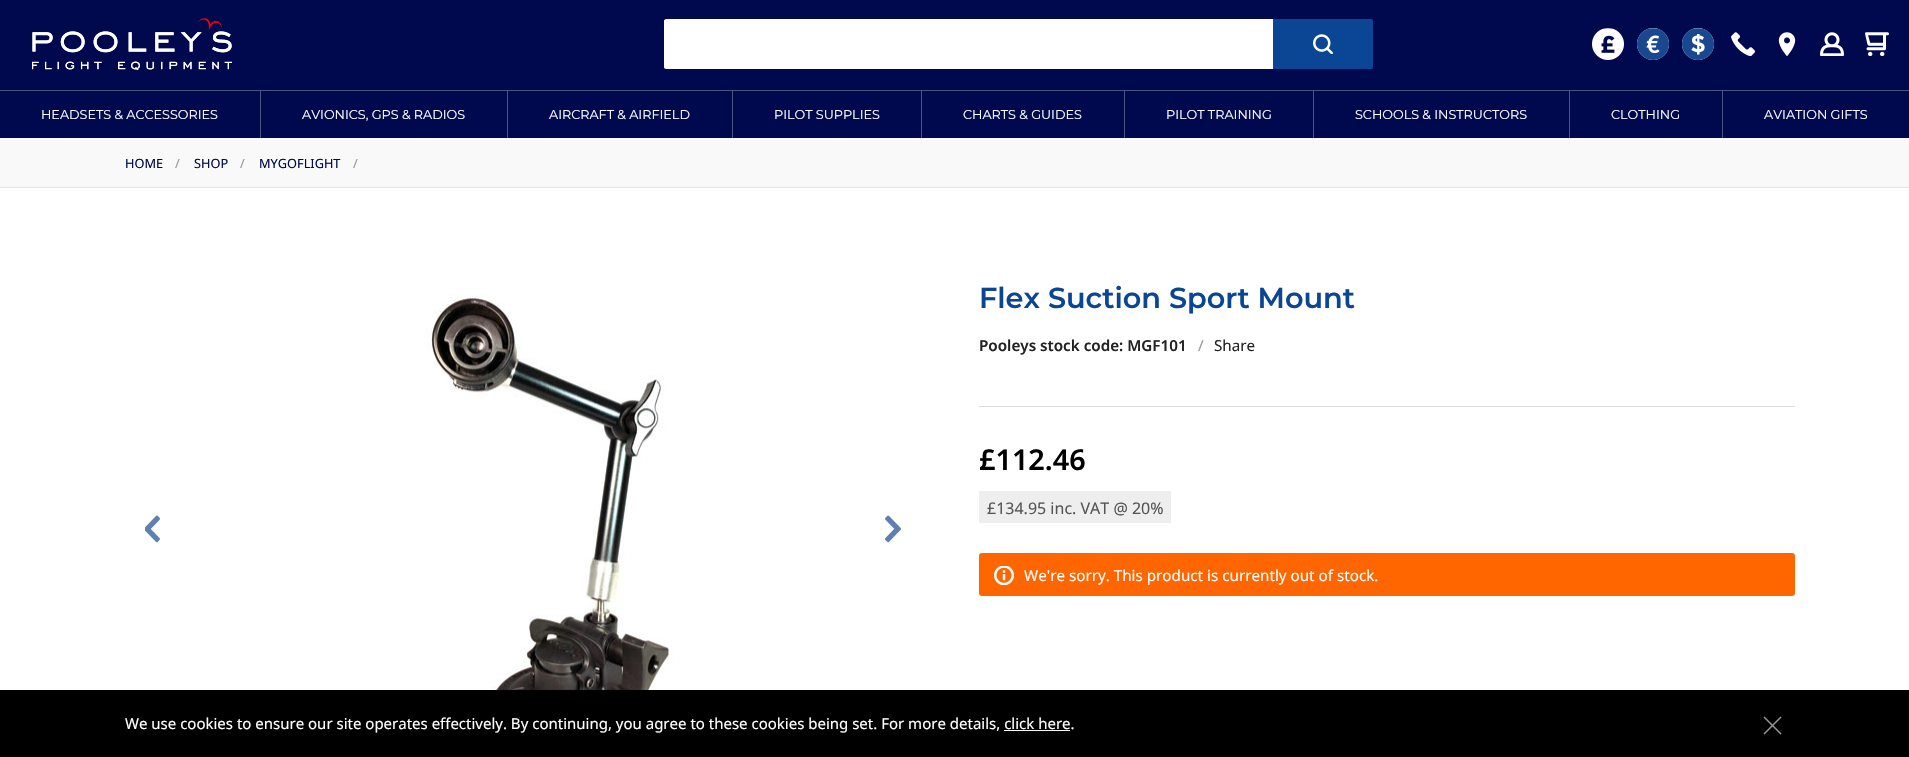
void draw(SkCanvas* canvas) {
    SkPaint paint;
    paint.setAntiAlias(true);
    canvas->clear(0xFFFFFFFF);
    paint.setColor(0xFF00094D);
    canvas->drawRect(SkRect::MakeXYWH(0, 0, 1909, 90), paint);
    canvas->drawImageRect(SkImages::DeferredFromEncodedData(SkData::MakeFromFileName("img1.png")), SkRect::MakeXYWH(32, 18, 200, 52), SkSamplingOptions());
    paint.setColor(0xFFFFFFFF);
    canvas->drawPath(SkPathBuilder().moveTo(666, 19).lineTo(1273, 19).lineTo(1273, 69).lineTo(666, 69).cubicTo(665, 69, 664, 68, 664, 67).lineTo(664, 21).cubicTo(664, 20, 665, 19, 666, 19).close().detach(), paint);
    paint.setColor(0xFF0A4693);
    canvas->drawPath(SkPathBuilder().moveTo(1273, 19).lineTo(1371, 19).cubicTo(1372, 19, 1373, 20, 1373, 21).lineTo(1373, 67).cubicTo(1373, 68, 1372, 69, 1371, 69).lineTo(1273, 69).close().detach(), paint);
    canvas->drawImageRect(SkImages::DeferredFromEncodedData(SkData::MakeFromFileName("img2.png")), SkRect::MakeXYWH(1313, 34, 20, 20), SkSamplingOptions());
    canvas->drawImageRect(SkImages::DeferredFromEncodedData(SkData::MakeFromFileName("img3.png")), SkRect::MakeXYWH(1592, 28, 32, 32), SkSamplingOptions());
    paint.setColor(0xFFFFFFFF);
    canvas->drawCircle(1653, 44, 16, paint);
    canvas->drawImageRect(SkImages::DeferredFromEncodedData(SkData::MakeFromFileName("img4.png")), SkRect::MakeXYWH(1637, 28, 32, 32), SkSamplingOptions());
    canvas->drawCircle(1698, 44, 16, paint);
    canvas->drawImageRect(SkImages::DeferredFromEncodedData(SkData::MakeFromFileName("img5.png")), SkRect::MakeXYWH(1682, 28, 32, 32), SkSamplingOptions());
    canvas->drawImageRect(SkImages::DeferredFromEncodedData(SkData::MakeFromFileName("img6.png")), SkRect::MakeXYWH(1731, 32, 24, 24), SkSamplingOptions());
    canvas->drawImageRect(SkImages::DeferredFromEncodedData(SkData::MakeFromFileName("img7.png")), SkRect::MakeXYWH(1778, 32, 18, 24), SkSamplingOptions());
    canvas->drawImageRect(SkImages::DeferredFromEncodedData(SkData::MakeFromFileName("img8.png")), SkRect::MakeXYWH(1820, 32, 24, 24), SkSamplingOptions());
    canvas->drawImageRect(SkImages::DeferredFromEncodedData(SkData::MakeFromFileName("img9.png")), SkRect::MakeXYWH(1865, 32, 24, 24), SkSamplingOptions());
    paint.setColor(0xFF00094D);
    canvas->drawRect(SkRect::MakeXYWH(0, 91, 1909, 47), paint);
    paint.setColor(0xFF4D5382);
    canvas->drawRect(SkRect::MakeXYWH(0, 90, 1909, 1), paint);
    canvas->drawRect(SkRect::MakeXYWH(260, 91, 1, 47), paint);
    SkFont font1(fontMgr->matchFamilyStyle("Montserrat", SkFontStyle::Normal()), 12.75f);
    font1.setSubpixel(true);
    paint.setColor(0xFFFFFFFF);
    canvas->drawString("HEADSETS & ACCESSORIES", 41, 119, font1, paint);
    paint.setColor(0xFF4D5382);
    canvas->drawRect(SkRect::MakeXYWH(507, 91, 1, 47), paint);
    paint.setColor(0xFFFFFFFF);
    canvas->drawString("AVIONICS, GPS & RADIOS", 302, 119, font1, paint);
    paint.setColor(0xFF4D5382);
    canvas->drawRect(SkRect::MakeXYWH(732, 91, 1, 47), paint);
    paint.setColor(0xFFFFFFFF);
    canvas->drawString("AIRCRAFT & AIRFIELD", 549, 119, font1, paint);
    paint.setColor(0xFF4D5382);
    canvas->drawRect(SkRect::MakeXYWH(921, 91, 1, 47), paint);
    paint.setColor(0xFFFFFFFF);
    canvas->drawString("PILOT SUPPLIES", 774, 119, font1, paint);
    paint.setColor(0xFF4D5382);
    canvas->drawRect(SkRect::MakeXYWH(1124, 91, 1, 47), paint);
    paint.setColor(0xFFFFFFFF);
    canvas->drawString("CHARTS & GUIDES", 963, 119, font1, paint);
    paint.setColor(0xFF4D5382);
    canvas->drawRect(SkRect::MakeXYWH(1313, 91, 1, 47), paint);
    paint.setColor(0xFFFFFFFF);
    canvas->drawString("PILOT TRAINING", 1166, 119, font1, paint);
    paint.setColor(0xFF4D5382);
    canvas->drawRect(SkRect::MakeXYWH(1569, 91, 1, 47), paint);
    paint.setColor(0xFFFFFFFF);
    canvas->drawString("SCHOOLS & INSTRUCTORS", 1355, 119, font1, paint);
    paint.setColor(0xFF4D5382);
    canvas->drawRect(SkRect::MakeXYWH(1722, 91, 1, 47), paint);
    paint.setColor(0xFFFFFFFF);
    canvas->drawString("CLOTHING", 1611, 119, font1, paint);
    canvas->drawString("AVIATION GIFTS", 1764, 119, font1, paint);
    paint.setColor(0xFFF9F9F9);
    canvas->drawRect(SkRect::MakeXYWH(0, 138, 1909, 49), paint);
    paint.setColor(0xFFE5E5E5);
    canvas->drawRect(SkRect::MakeXYWH(0, 187, 1909, 1), paint);
    SkFont font2(fontMgr->matchFamilyStyle("Noto Sans", SkFontStyle::Normal()), 12.75f);
    font2.setSubpixel(true);
    paint.setColor(0xFF00094D);
    canvas->drawString("HOME", 125, 168, font2, paint);
    paint.setColor(0xFF999999);
    canvas->drawString("/", 175, 168, font2, paint);
    paint.setColor(0xFF00094D);
    canvas->drawString("SHOP", 194, 168, font2, paint);
    paint.setColor(0xFF999999);
    canvas->drawString("/", 240, 168, font2, paint);
    paint.setColor(0xFF00094D);
    canvas->drawString("MYGOFLIGHT", 259, 168, font2, paint);
    paint.setColor(0xFF999999);
    canvas->drawString("/", 353, 168, font2, paint);
    canvas->drawImageRect(SkImages::DeferredFromEncodedData(SkData::MakeFromFileName("img10.png")), SkRect::MakeXYWH(145, 515, 15, 28), SkSamplingOptions());
    canvas->drawImageRect(SkImages::DeferredFromEncodedData(SkData::MakeFromFileName("img11.png")), SkRect::MakeXYWH(425, 294, 248, 396), SkSamplingOptions());
    canvas->drawImageRect(SkImages::DeferredFromEncodedData(SkData::MakeFromFileName("img12.png")), SkRect::MakeXYWH(885, 515, 16, 28), SkSamplingOptions());
    SkFont font3(fontMgr->matchFamilyStyle("Montserrat", SkFontStyle(600, SkFontStyle::kNormal_Width, SkFontStyle::kUpright_Slant)), 28.75f);
    font3.setSubpixel(true);
    paint.setColor(0xFF0A4693);
    canvas->drawString("Flex Suction Sport Mount", 979, 308, font3, paint);
    SkFont font4(fontMgr->matchFamilyStyle("Noto Sans", SkFontStyle(600, SkFontStyle::kNormal_Width, SkFontStyle::kUpright_Slant)), 15.2f);
    font4.setSubpixel(true);
    paint.setColor(0xFF222222);
    canvas->drawString("Pooleys stock code: MGF101", 979, 351, font4, paint);
    SkFont font5(fontMgr->matchFamilyStyle("Noto Sans", SkFontStyle::Normal()), 15.2f);
    font5.setSubpixel(true);
    paint.setColor(0xFF999999);
    canvas->drawString("/", 1198, 351, font5, paint);
    paint.setColor(0xFF222222);
    canvas->drawString("Share", 1214, 351, font5, paint);
    paint.setColor(0xFFDDDDDD);
    canvas->drawRect(SkRect::MakeXYWH(979, 406, 816, 1), paint);
    SkFont font6(fontMgr->matchFamilyStyle("Noto Sans", SkFontStyle(600, SkFontStyle::kNormal_Width, SkFontStyle::kUpright_Slant)), 28.75f);
    font6.setSubpixel(true);
    paint.setColor(0xFF000000);
    canvas->drawString("£112.46", 979, 470, font6, paint);
    paint.setColor(0xFFEEEEEE);
    canvas->drawRect(SkRect::MakeXYWH(979, 491, 192, 32), paint);
    SkFont font7(fontMgr->matchFamilyStyle("Noto Sans", SkFontStyle::Normal()), 16);
    font7.setSubpixel(true);
    paint.setColor(0xFF555555);
    canvas->drawString("£134.95 inc. VAT @ 20%", 987, 514, font7, paint);
    paint.setColor(0xFFFF6600);
    canvas->drawRoundRect(SkRect::MakeXYWH(979, 553, 816, 43), 3, 3, paint);
    canvas->drawImageRect(SkImages::DeferredFromEncodedData(SkData::MakeFromFileName("img13.png")), SkRect::MakeXYWH(994, 566, 20, 19), SkSamplingOptions());
    paint.setColor(0xFFFFFFFF);
    canvas->drawString("We're sorry. This product is currently out of stock.", 1024, 581, font5, paint);
    paint.setColor(0xFF000000);
    canvas->drawRect(SkRect::MakeXYWH(0, 690, 1909, 67), paint);
    SkFont font8(fontMgr->matchFamilyStyle("Noto Sans", SkFontStyle::Normal()), 15);
    font8.setSubpixel(true);
    paint.setColor(0xFFFFFFFF);
    canvas->drawString("We use cookies to ensure our site operates effectively. By continuing, you agree to these cookies being set. For more details, click here.", 125, 729, font8, paint);
    canvas->drawRect(SkRect::MakeXYWH(1004, 730, 66, 1), paint);
    paint.setColor(0xFF999999);
    canvas->drawPath(SkPathBuilder().moveTo(1780.5f, 716.5f).lineTo(1781.5f, 717.5f).lineTo(1764.5f, 734.5f).lineTo(1763.5f, 733.5f).close().detach(), paint);
    canvas->drawPath(SkPathBuilder().moveTo(1763.5f, 717.5f).lineTo(1764.5f, 716.5f).lineTo(1781.5f, 733.5f).lineTo(1780.5f, 734.5f).close().detach(), paint);
}
